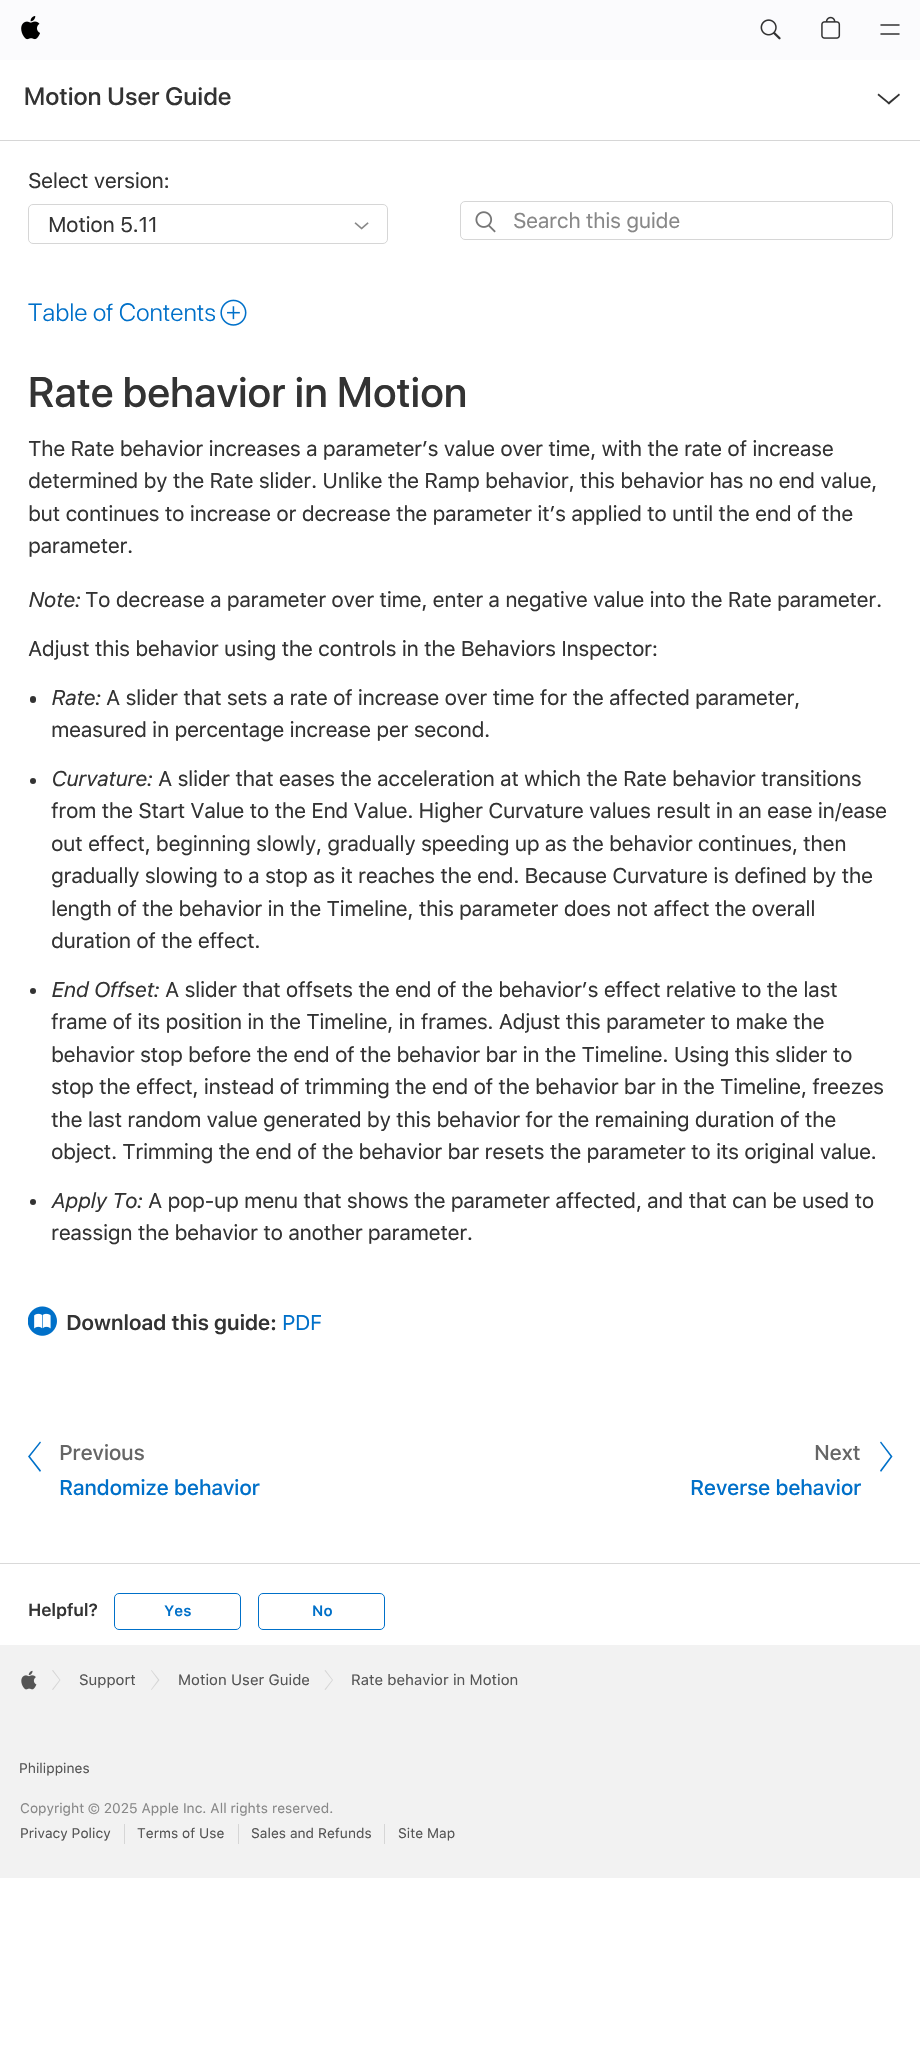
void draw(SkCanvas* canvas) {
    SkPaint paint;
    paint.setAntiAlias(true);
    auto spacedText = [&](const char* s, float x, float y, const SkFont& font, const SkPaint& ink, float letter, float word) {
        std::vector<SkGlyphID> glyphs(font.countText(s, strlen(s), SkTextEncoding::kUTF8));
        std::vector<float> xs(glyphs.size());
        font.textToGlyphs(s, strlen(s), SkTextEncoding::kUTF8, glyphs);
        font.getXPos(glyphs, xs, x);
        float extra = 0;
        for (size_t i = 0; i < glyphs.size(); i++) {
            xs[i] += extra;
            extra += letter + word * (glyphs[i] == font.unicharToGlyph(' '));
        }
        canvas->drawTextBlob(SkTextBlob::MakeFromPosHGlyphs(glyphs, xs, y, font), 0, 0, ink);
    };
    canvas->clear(0xFFFFFFFF);
    paint.setColor(0xFFFBFBFD);
    canvas->drawRect(SkRect::MakeXYWH(0, 0, 920, 60), paint);
    canvas->drawImageRect(SkImages::DeferredFromEncodedData(SkData::MakeFromFileName("img1.png")), SkRect::MakeXYWH(21, 16, 19, 24), SkSamplingOptions());
    canvas->drawImageRect(SkImages::DeferredFromEncodedData(SkData::MakeFromFileName("img2.png")), SkRect::MakeXYWH(760, 19, 21, 21), SkSamplingOptions());
    canvas->drawImageRect(SkImages::DeferredFromEncodedData(SkData::MakeFromFileName("img3.png")), SkRect::MakeXYWH(821, 16, 20, 23), SkSamplingOptions());
    paint.setStyle(SkPaint::kStroke_Style);
    paint.setStrokeWidth(1.5f);
    paint.setStrokeCap(SkPaint::kRound_Cap);
    paint.setStrokeJoin(SkPaint::kRound_Join);
    paint.setColor(0xFF323233);
    canvas->drawPath(SkPathBuilder().moveTo(881, 34).lineTo(899, 34).moveTo(881, 25).lineTo(899, 25).detach(), paint);
    SkFont font1(fontMgr->matchFamilyStyle("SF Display", SkFontStyle(500, SkFontStyle::kNormal_Width, SkFontStyle::kUpright_Slant)), 25);
    font1.setSubpixel(true);
    paint.setStyle(SkPaint::kFill_Style);
    paint.setColor(0xFF333333);
    spacedText("Motion User Guide", 24, 105, font1, paint, 0.4f, 0);
    canvas->drawPath(SkPathBuilder().moveTo(878.5f, 93.5f).lineTo(890, 103).lineTo(889, 104.5f).lineTo(877.5f, 95).close().detach(), paint);
    canvas->drawPath(SkPathBuilder().moveTo(887.5f, 103).lineTo(899, 93.5f).lineTo(900, 95).lineTo(889, 104.5f).close().detach(), paint);
    paint.setColor(0xFFD6D6D6);
    canvas->drawRect(SkRect::MakeXYWH(0, 140, 920, 1), paint);
    SkFont font2(fontMgr->matchFamilyStyle("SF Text", SkFontStyle::Normal()), 21.25f);
    font2.setSubpixel(true);
    paint.setColor(0xFF333333);
    spacedText("Select version:", 28, 188, font2, paint, -0.45f, 0);
    paint.setStyle(SkPaint::kStroke_Style);
    paint.setStrokeWidth(1);
    paint.setStrokeCap(SkPaint::kButt_Cap);
    paint.setStrokeJoin(SkPaint::kMiter_Join);
    paint.setColor(0xFFD6D6D6);
    canvas->drawRoundRect(SkRect::MakeXYWH(28.5f, 204.5f, 359, 39), 4.5f, 4.5f, paint);
    paint.setStyle(SkPaint::kFill_Style);
    paint.setColor(0xFF333333);
    spacedText("Motion 5.11", 48, 232, font2, paint, -0.45f, 0);
    canvas->drawImageRect(SkImages::DeferredFromEncodedData(SkData::MakeFromFileName("img4.png")), SkRect::MakeXYWH(354, 222, 15, 8), SkSamplingOptions());
    paint.setStyle(SkPaint::kStroke_Style);
    paint.setColor(0xFFD6D6D6);
    canvas->drawRoundRect(SkRect::MakeXYWH(460.5f, 201.5f, 432, 38), 4.5f, 4.5f, paint);
    canvas->drawImageRect(SkImages::DeferredFromEncodedData(SkData::MakeFromFileName("img5.png")), SkRect::MakeXYWH(475, 211, 21, 22), SkSamplingOptions());
    paint.setStyle(SkPaint::kFill_Style);
    paint.setColor(0xFF888888);
    spacedText("Search this guide", 513, 228, font2, paint, -0.45f, 0);
    SkFont font3(fontMgr->matchFamilyStyle("SF Display", SkFontStyle(300, SkFontStyle::kNormal_Width, SkFontStyle::kUpright_Slant)), 25);
    font3.setSubpixel(true);
    paint.setColor(0xFF0070C9);
    spacedText("Table of Contents", 28, 321, font3, paint, 0.4f, 0);
    canvas->drawImageRect(SkImages::DeferredFromEncodedData(SkData::MakeFromFileName("img6.png")), SkRect::MakeXYWH(220, 299, 27, 27), SkSamplingOptions());
    SkFont font4(fontMgr->matchFamilyStyle("SF Display", SkFontStyle(500, SkFontStyle::kNormal_Width, SkFontStyle::kUpright_Slant)), 42.5f);
    font4.setSubpixel(true);
    paint.setColor(0xFF333333);
    spacedText("Rate behavior in Motion", 28, 407, font4, paint, 0.4f, 0);
    spacedText("The Rate behavior increases a parameter’s value over time, with the rate of increase", 28, 456, font2, paint, -0.45f, 0);
    spacedText("determined by the Rate slider. Unlike the Ramp behavior, this behavior has no end value,", 28, 488, font2, paint, -0.45f, 0);
    spacedText("but continues to increase or decrease the parameter it’s applied to until the end of the", 28, 521, font2, paint, -0.45f, 0);
    spacedText("parameter.", 28, 553, font2, paint, -0.45f, 0);
    SkFont font5(fontMgr->matchFamilyStyle("SF Text", SkFontStyle::Italic()), 21.25f);
    font5.setSubpixel(true);
    spacedText("Note:", 28, 607, font5, paint, -0.45f, 0);
    spacedText("To decrease a parameter over time, enter a negative value into the Rate parameter.", 85, 607, font2, paint, -0.45f, 0);
    spacedText("Adjust this behavior using the controls in the Behaviors Inspector:", 28, 656, font2, paint, -0.45f, 0);
    canvas->drawRoundRect(SkRect::MakeXYWH(30, 696, 6, 7), 3, 3, paint);
    spacedText("Rate:", 51, 705, font5, paint, -0.45f, 0);
    spacedText("A slider that sets a rate of increase over time for the affected parameter,", 106, 705, font2, paint, -0.45f, 0);
    spacedText("measured in percentage increase per second.", 51, 737, font2, paint, -0.45f, 0);
    canvas->drawCircle(33, 781, 3, paint);
    spacedText("Curvature:", 51, 786, font5, paint, -0.45f, 0);
    spacedText("A slider that eases the acceleration at which the Rate behavior transitions", 158, 786, font2, paint, -0.45f, 0);
    spacedText("from the Start Value to the End Value. Higher Curvature values result in an ease in/ease", 51, 818, font2, paint, -0.45f, 0);
    spacedText("out effect, beginning slowly, gradually speeding up as the behavior continues, then", 51, 851, font2, paint, -0.45f, 0);
    spacedText("gradually slowing to a stop as it reaches the end. Because Curvature is defined by the", 51, 883, font2, paint, -0.45f, 0);
    spacedText("length of the behavior in the Timeline, this parameter does not affect the overall", 51, 916, font2, paint, -0.45f, 0);
    spacedText("duration of the effect.", 51, 948, font2, paint, -0.45f, 0);
    canvas->drawCircle(33, 991, 3, paint);
    spacedText("End Offset:", 51, 997, font5, paint, -0.45f, 0);
    spacedText("A slider that offsets the end of the behavior’s effect relative to the last", 165, 997, font2, paint, -0.45f, 0);
    spacedText("frame of its position in the Timeline, in frames. Adjust this parameter to make the", 51, 1029, font2, paint, -0.45f, 0);
    spacedText("behavior stop before the end of the behavior bar in the Timeline. Using this slider to", 51, 1062, font2, paint, -0.45f, 0);
    spacedText("stop the effect, instead of trimming the end of the behavior bar in the Timeline, freezes", 51, 1094, font2, paint, -0.45f, 0);
    spacedText("the last random value generated by this behavior for the remaining duration of the", 51, 1127, font2, paint, -0.45f, 0);
    spacedText("object. Trimming the end of the behavior bar resets the parameter to its original value.", 51, 1159, font2, paint, -0.45f, 0);
    canvas->drawCircle(33, 1202, 3, paint);
    spacedText("Apply To:", 51, 1208, font5, paint, -0.45f, 0);
    spacedText("A pop-up menu that shows the parameter affected, and that can be used to", 148, 1208, font2, paint, -0.45f, 0);
    spacedText("reassign the behavior to another parameter.", 51, 1240, font2, paint, -0.45f, 0);
    canvas->drawImageRect(SkImages::DeferredFromEncodedData(SkData::MakeFromFileName("img7.png")), SkRect::MakeXYWH(28, 1306, 29, 30), SkSamplingOptions());
    SkFont font6(fontMgr->matchFamilyStyle("SF Text", SkFontStyle(600, SkFontStyle::kNormal_Width, SkFontStyle::kUpright_Slant)), 21.25f);
    font6.setSubpixel(true);
    spacedText("Download this guide:", 66, 1330, font6, paint, -0.45f, 0);
    paint.setColor(0xFF0070C9);
    spacedText("PDF", 282, 1330, font2, paint, -0.45f, 0);
    canvas->drawPath(SkPathBuilder().moveTo(40, 1441.5f).lineTo(28, 1456.5f).lineTo(40, 1472).lineTo(41, 1470.5f).lineTo(30, 1456.5f).lineTo(41, 1442.5f).close().detach(), paint);
    SkFont font7(fontMgr->matchFamilyStyle("SF Text", SkFontStyle(500, SkFontStyle::kNormal_Width, SkFontStyle::kUpright_Slant)), 21.25f);
    font7.setSubpixel(true);
    paint.setColor(0xFF666666);
    spacedText("Previous", 59, 1460, font7, paint, -0.45f, 0);
    paint.setColor(0xFF0070C9);
    spacedText("Randomize behavior", 59, 1495, font7, paint, -0.45f, 0);
    paint.setColor(0xFF666666);
    spacedText("Next", 814, 1460, font7, paint, -0.45f, 0);
    paint.setColor(0xFF0070C9);
    canvas->drawPath(SkPathBuilder().moveTo(880, 1442.5f).lineTo(890.5f, 1456.5f).lineTo(880, 1470.5f).lineTo(881, 1472).lineTo(892.5f, 1456.5f).lineTo(881, 1441.5f).close().detach(), paint);
    spacedText("Reverse behavior", 690, 1495, font7, paint, -0.45f, 0);
    paint.setColor(0xFFD9D9D9);
    canvas->drawRect(SkRect::MakeXYWH(0, 1563, 920, 1), paint);
    SkFont font8(fontMgr->matchFamilyStyle("SF Text", SkFontStyle(600, SkFontStyle::kNormal_Width, SkFontStyle::kUpright_Slant)), 17.5f);
    font8.setSubpixel(true);
    paint.setColor(0xFF333333);
    spacedText("Helpful?", 28, 1616, font8, paint, -0.25f, 0);
    paint.setStyle(SkPaint::kStroke_Style);
    paint.setColor(0xFF0070C9);
    canvas->drawRoundRect(SkRect::MakeXYWH(114.5f, 1593.5f, 126, 36), 4.5f, 4.5f, paint);
    SkFont font9(fontMgr->matchFamilyStyle("SF Text", SkFontStyle(600, SkFontStyle::kNormal_Width, SkFontStyle::kUpright_Slant)), 15);
    font9.setSubpixel(true);
    paint.setStyle(SkPaint::kFill_Style);
    canvas->drawString("Yes", 164, 1616, font9, paint);
    paint.setStyle(SkPaint::kStroke_Style);
    canvas->drawRoundRect(SkRect::MakeXYWH(258.5f, 1593.5f, 126, 36), 4.5f, 4.5f, paint);
    paint.setStyle(SkPaint::kFill_Style);
    canvas->drawString("No", 312, 1616, font9, paint);
    paint.setColor(0xFFF2F2F2);
    canvas->drawRect(SkRect::MakeXYWH(0, 1645, 920, 233), paint);
    canvas->drawImageRect(SkImages::DeferredFromEncodedData(SkData::MakeFromFileName("img8.png")), SkRect::MakeXYWH(21, 1670, 16, 20), SkSamplingOptions());
    paint.setColor(0xFFD6D6D6);
    canvas->drawPath(SkPathBuilder().moveTo(53, 1670).lineTo(60.5f, 1680).lineTo(53, 1690).lineTo(52, 1689.5f).lineTo(59.5f, 1680).lineTo(52, 1670.5f).close().detach(), paint);
    SkFont font10(fontMgr->matchFamilyStyle("SF Text", SkFontStyle::Normal()), 15);
    font10.setSubpixel(true);
    paint.setColor(0xFF555555);
    canvas->drawString("Support", 79, 1685, font10, paint);
    paint.setColor(0xFFD6D6D6);
    canvas->drawPath(SkPathBuilder().moveTo(151.5f, 1670).lineTo(159.5f, 1680).lineTo(151.5f, 1690).lineTo(151, 1689.5f).lineTo(158, 1680).lineTo(151, 1670.5f).close().detach(), paint);
    paint.setColor(0xFF555555);
    canvas->drawString("Motion User Guide", 178, 1685, font10, paint);
    paint.setColor(0xFFD6D6D6);
    canvas->drawPath(SkPathBuilder().moveTo(325.5f, 1670).lineTo(333, 1680).lineTo(325.5f, 1690).lineTo(324.5f, 1689.5f).lineTo(332, 1680).lineTo(324.5f, 1670.5f).close().detach(), paint);
    paint.setColor(0xFF555555);
    canvas->drawString("Rate behavior in Motion", 351, 1685, font10, paint);
    SkFont font11(fontMgr->matchFamilyStyle("SF Text", SkFontStyle::Normal()), 13.8f);
    font11.setSubpixel(true);
    canvas->drawString("Philippines", 19, 1773, font11, paint);
    paint.setColor(0xFF888888);
    canvas->drawString("Copyright © 2025 Apple Inc. All rights reserved.", 20, 1813, font11, paint);
    paint.setColor(0xFFD6D6D6);
    canvas->drawRect(SkRect::MakeXYWH(124, 1824, 1, 20), paint);
    paint.setColor(0xFF555555);
    canvas->drawString("Privacy Policy", 20, 1838, font11, paint);
    paint.setColor(0xFFD6D6D6);
    canvas->drawRect(SkRect::MakeXYWH(238, 1824, 1, 20), paint);
    paint.setColor(0xFF555555);
    canvas->drawString("Terms of Use", 137, 1838, font11, paint);
    paint.setColor(0xFFD6D6D6);
    canvas->drawRect(SkRect::MakeXYWH(384, 1824, 1, 20), paint);
    paint.setColor(0xFF555555);
    canvas->drawString("Sales and Refunds", 251, 1838, font11, paint);
    canvas->drawString("Site Map", 398, 1838, font11, paint);
}
